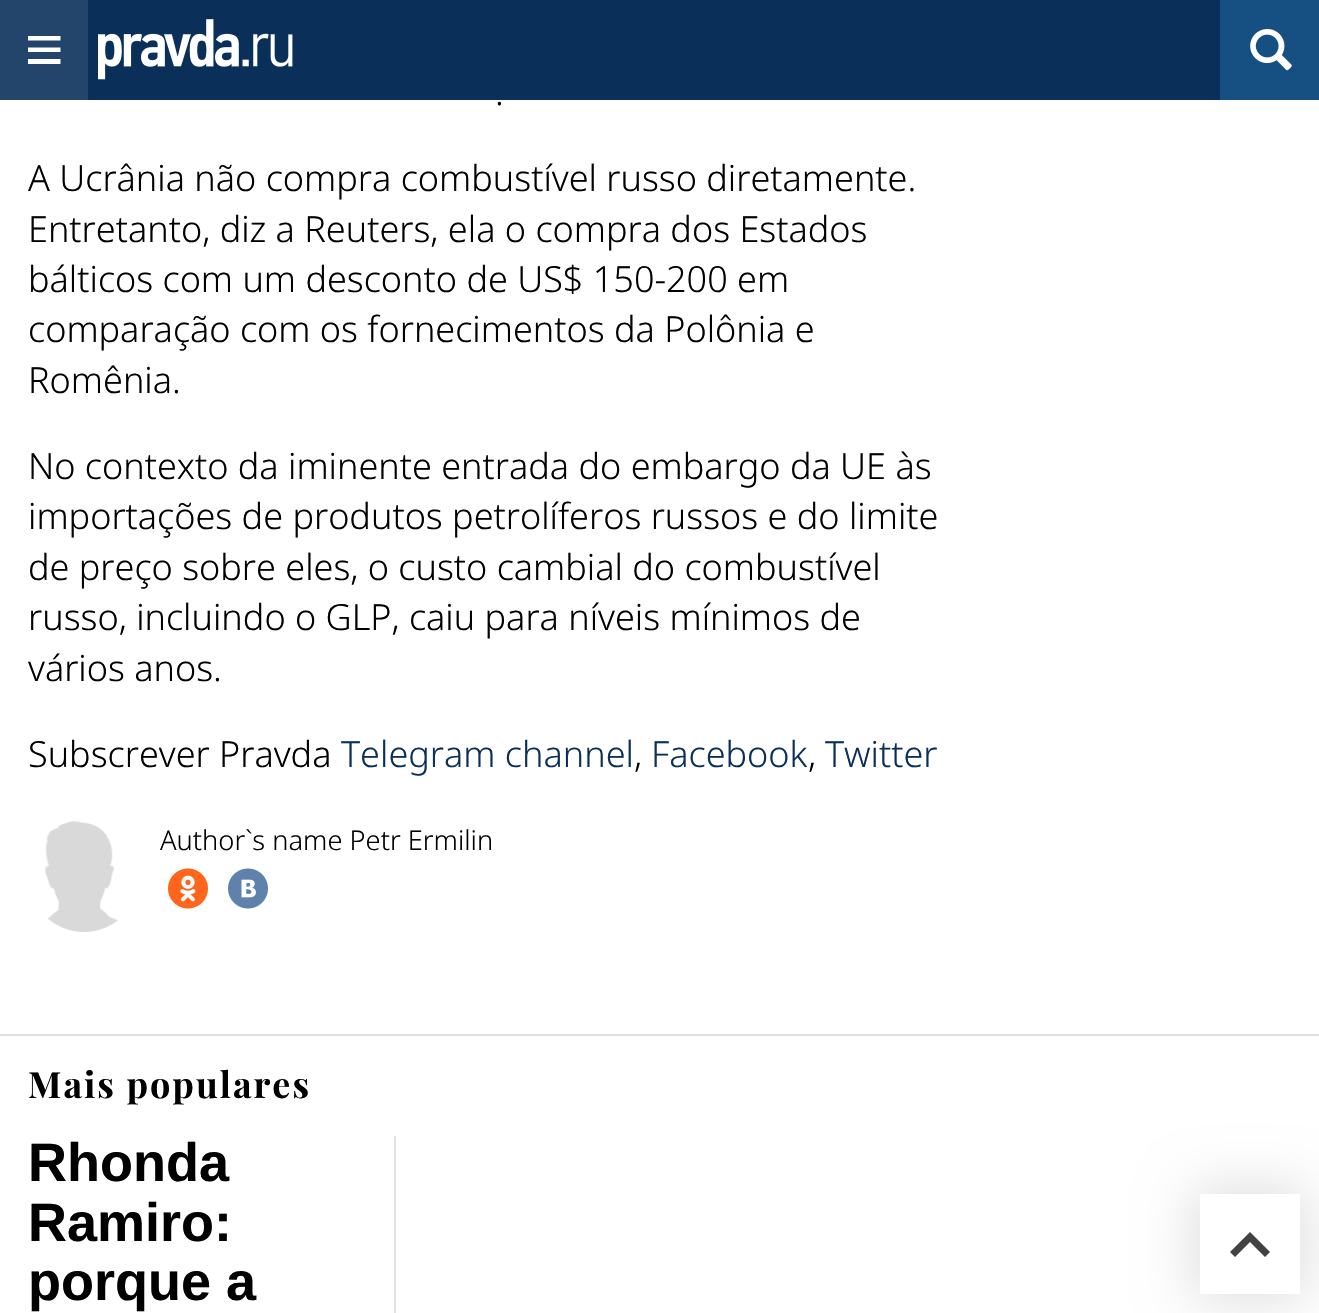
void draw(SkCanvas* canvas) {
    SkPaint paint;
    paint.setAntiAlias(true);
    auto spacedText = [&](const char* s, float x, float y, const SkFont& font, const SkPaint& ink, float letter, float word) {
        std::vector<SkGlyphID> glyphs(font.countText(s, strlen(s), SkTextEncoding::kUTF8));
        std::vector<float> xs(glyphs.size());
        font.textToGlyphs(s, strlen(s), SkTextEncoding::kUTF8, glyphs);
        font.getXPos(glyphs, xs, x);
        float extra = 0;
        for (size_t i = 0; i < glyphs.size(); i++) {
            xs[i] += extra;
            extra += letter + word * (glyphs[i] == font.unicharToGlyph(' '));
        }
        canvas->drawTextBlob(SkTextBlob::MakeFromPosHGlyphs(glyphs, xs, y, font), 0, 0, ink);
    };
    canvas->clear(0xFFFFFFFF);
    paint.setColor(0xFF0A305A);
    canvas->drawRect(SkRect::MakeXYWH(88, 0, 1132, 100), paint);
    paint.setColor(0xFF23456B);
    canvas->drawRect(SkRect::MakeXYWH(0, 0, 88, 100), paint);
    paint.setColor(0xFFFFFFFF);
    canvas->drawPath(SkPathBuilder().moveTo(28, 36).lineTo(60.5f, 36).lineTo(60.5f, 40.5f).lineTo(28, 40.5f).close().moveTo(28, 47.5f).lineTo(60.5f, 47.5f).lineTo(60.5f, 52).lineTo(28, 52).close().moveTo(28, 59).lineTo(60.5f, 59).lineTo(60.5f, 64).lineTo(28, 64).close().detach(), paint);
    canvas->drawImageRect(SkImages::DeferredFromEncodedData(SkData::MakeFromFileName("img1.png")), SkRect::MakeXYWH(98, 19, 195, 61), SkSamplingOptions());
    paint.setColor(0xFF164F82);
    canvas->drawRect(SkRect::MakeXYWH(1220, 0, 99, 100), paint);
    canvas->drawImageRect(SkImages::DeferredFromEncodedData(SkData::MakeFromFileName("img2.png")), SkRect::MakeXYWH(1250, 29, 42, 42), SkSamplingOptions());
    paint.setColor(0xFFE0E0E0);
    canvas->drawRect(SkRect::MakeXYWH(0, 1034, 1319, 2), paint);
    SkFont font1(fontMgr->matchFamilyStyle("Noto Sans", SkFontStyle(300, SkFontStyle::kNormal_Width, SkFontStyle::kUpright_Slant)), 36);
    font1.setSubpixel(true);
    paint.setColor(0xFF000000);
    canvas->drawString(".", 495, 105, font1, paint);
    canvas->drawString("A Ucrânia não compra combustível russo diretamente.", 28, 191, font1, paint);
    canvas->drawString("Entretanto, diz a Reuters, ela o compra dos Estados", 28, 242, font1, paint);
    canvas->drawString("bálticos com um desconto de US$ 150-200 em", 28, 292, font1, paint);
    canvas->drawString("comparação com os fornecimentos da Polônia e", 28, 342, font1, paint);
    canvas->drawString("Romênia.", 28, 393, font1, paint);
    canvas->drawString("No contexto da iminente entrada do embargo da UE às", 28, 479, font1, paint);
    canvas->drawString("importações de produtos petrolíferos russos e do limite", 28, 529, font1, paint);
    canvas->drawString("de preço sobre eles, o custo cambial do combustível", 28, 580, font1, paint);
    canvas->drawString("russo, incluindo o GLP, caiu para níveis mínimos de", 28, 630, font1, paint);
    canvas->drawString("vários anos.", 28, 681, font1, paint);
    canvas->drawString("Subscrever Pravda", 28, 767, font1, paint);
    paint.setColor(0xFF0A305A);
    canvas->drawString("Telegram channel", 341, 767, font1, paint);
    paint.setColor(0xFF000000);
    canvas->drawString(",", 634, 767, font1, paint);
    paint.setColor(0xFF0A305A);
    canvas->drawString("Facebook", 651, 767, font1, paint);
    paint.setColor(0xFF000000);
    canvas->drawString(",", 808, 767, font1, paint);
    paint.setColor(0xFF0A305A);
    canvas->drawString("Twitter", 825, 767, font1, paint);
    canvas->drawImageRect(SkImages::DeferredFromEncodedData(SkData::MakeFromFileName("img3.png")), SkRect::MakeXYWH(45, 820, 73, 112), SkSamplingOptions());
    SkFont font2(fontMgr->matchFamilyStyle("Noto Sans", SkFontStyle(300, SkFontStyle::kNormal_Width, SkFontStyle::kUpright_Slant)), 27.25f);
    font2.setSubpixel(true);
    paint.setColor(0xFF000000);
    canvas->drawString("Author`s name Petr Ermilin", 160, 850, font2, paint);
    canvas->drawImageRect(SkImages::DeferredFromEncodedData(SkData::MakeFromFileName("img4.png")), SkRect::MakeXYWH(168, 868, 40, 41), SkSamplingOptions());
    canvas->drawImageRect(SkImages::DeferredFromEncodedData(SkData::MakeFromFileName("img5.png")), SkRect::MakeXYWH(228, 868, 40, 41), SkSamplingOptions());
    SkFont font3(fontMgr->matchFamilyStyle("Playfair Display", SkFontStyle::Bold()), 36);
    font3.setSubpixel(true);
    spacedText("Mais populares", 28, 1098, font3, paint, 2, 0);
    SkFont font4(fontMgr->matchFamilyStyle("Liberation Sans", SkFontStyle::Bold()), 54);
    font4.setSubpixel(true);
    canvas->drawString("Rhonda", 28, 1181, font4, paint);
    canvas->drawString("Ramiro:", 28, 1241, font4, paint);
    canvas->drawString("porque a", 28, 1300, font4, paint);
    paint.setColor(0xFFE0E0E0);
    canvas->drawRect(SkRect::MakeXYWH(394, 1136, 2, 177), paint);
    canvas->save();
    canvas->clipPath(SkPathBuilder(SkPathFillType::kEvenOdd).moveTo(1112, 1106).lineTo(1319, 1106).lineTo(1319, 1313).lineTo(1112, 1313).close().moveTo(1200, 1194).lineTo(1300, 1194).lineTo(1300, 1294).lineTo(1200, 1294).close().detach(), true);
    paint.setColor(0x21000000);
    paint.setMaskFilter(SkMaskFilter::MakeBlur(kNormal_SkBlurStyle, 27));
    canvas->drawRect(SkRect::MakeXYWH(1194, 1188, 112, 112), paint);
    paint.setMaskFilter(nullptr);
    canvas->restore();
    paint.setColor(0xFF424242);
    canvas->drawPath(SkPathBuilder().moveTo(1250, 1232).lineTo(1270, 1252).lineTo(1265, 1257).lineTo(1250, 1242).lineTo(1235, 1257).lineTo(1230, 1252).close().detach(), paint);
}
